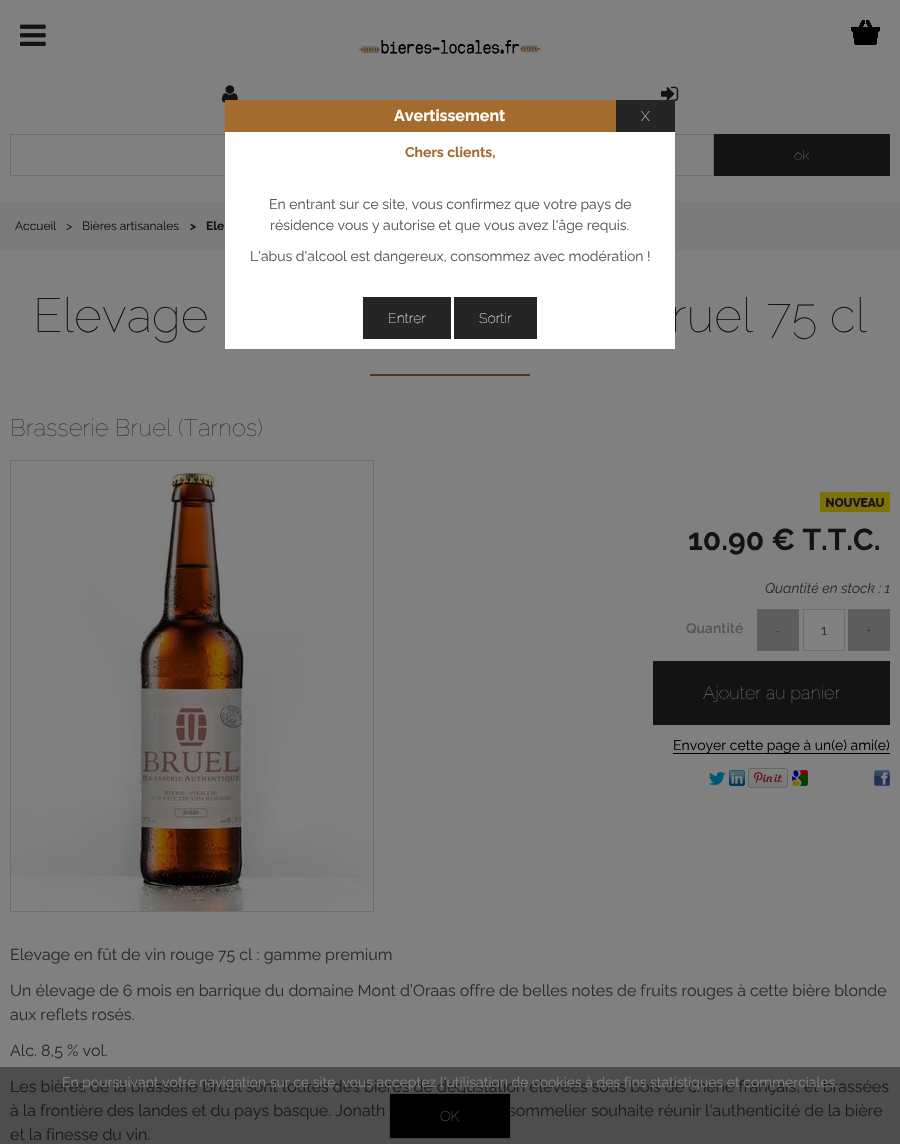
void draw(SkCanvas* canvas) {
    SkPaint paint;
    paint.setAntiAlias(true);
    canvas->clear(0xFF808080);
    paint.setColor(0xFF4D4D4D);
    canvas->drawRect(SkRect::MakeXYWH(0, 1067, 900, 77), paint);
    canvas->drawImageRect(SkImages::DeferredFromEncodedData(SkData::MakeFromFileName("img3.png")), SkRect::MakeXYWH(222, 85, 16, 18), SkSamplingOptions());
    paint.setColor(0xFFA46B2F);
    canvas->drawRect(SkRect::MakeXYWH(225, 100, 391, 32), paint);
    SkFont font1(fontMgr->matchFamilyStyle("Raleway", SkFontStyle::Bold()), 16);
    font1.setSubpixel(true);
    paint.setColor(0xFFFFFFFF);
    canvas->drawString("Avertissement", 394, 121, font1, paint);
    canvas->drawImageRect(SkImages::DeferredFromEncodedData(SkData::MakeFromFileName("img4.png")), SkRect::MakeXYWH(661, 86, 18, 15), SkSamplingOptions());
    paint.setColor(0xFF252525);
    canvas->drawRect(SkRect::MakeXYWH(616, 100, 59, 32), paint);
    SkFont font2(fontMgr->matchFamilyStyle("Raleway", SkFontStyle(100, SkFontStyle::kNormal_Width, SkFontStyle::kUpright_Slant)), 14);
    font2.setSubpixel(true);
    paint.setColor(0xFFFFFFFF);
    canvas->drawString("X", 641, 121, font2, paint);
    paint.setStyle(SkPaint::kStroke_Style);
    paint.setStrokeWidth(1);
    paint.setColor(0xFF6C6C6C);
    canvas->drawRect(SkRect::MakeXYWH(10.5f, 134.5f, 703, 41), paint);
    paint.setStyle(SkPaint::kFill_Style);
    paint.setColor(0xFF7B7B7B);
    canvas->drawRect(SkRect::MakeXYWH(0, 201, 900, 50), paint);
    paint.setColor(0xFFFFFFFF);
    canvas->drawRect(SkRect::MakeXYWH(225, 132, 450, 217), paint);
    SkFont font3(fontMgr->matchFamilyStyle("Raleway", SkFontStyle::Bold()), 14);
    font3.setSubpixel(true);
    paint.setColor(0xFFA46B2F);
    canvas->drawString("Chers clients,", 405, 157, font3, paint);
    SkFont font4(fontMgr->matchFamilyStyle("Raleway", SkFontStyle::Normal()), 14);
    font4.setSubpixel(true);
    paint.setColor(0xFF565656);
    canvas->drawString("En entrant sur ce site, vous confirmez que votre pays de", 269, 209, font4, paint);
    canvas->drawString("résidence vous y autorise et que vous avez l'âge requis.", 270, 230, font4, paint);
    canvas->drawString("L'abus d'alcool est dangereux, consommez avec modération !", 250, 261, font4, paint);
    paint.setColor(0xFF252525);
    canvas->drawRect(SkRect::MakeXYWH(363, 297, 88, 42), paint);
    paint.setColor(0xFFFFFFFF);
    canvas->drawString("Entrer", 388, 323, font2, paint);
    paint.setColor(0xFF252525);
    canvas->drawRect(SkRect::MakeXYWH(454, 297, 83, 42), paint);
    paint.setColor(0xFFFFFFFF);
    canvas->drawString("Sortir", 479, 323, font2, paint);
    canvas->drawImageRect(SkImages::DeferredFromEncodedData(SkData::MakeFromFileName("img1.png")), SkRect::MakeXYWH(20, 24, 26, 22), SkSamplingOptions());
    canvas->drawImageRect(SkImages::DeferredFromEncodedData(SkData::MakeFromFileName("img2.png")), SkRect::MakeXYWH(851, 20, 29, 25), SkSamplingOptions());
    canvas->drawImageRect(SkImages::DeferredFromEncodedData(SkData::MakeFromFileName("img5.png")), SkRect::MakeXYWH(358, 39, 184, 15), SkSamplingOptions());
    paint.setColor(0xFF131313);
    canvas->drawRect(SkRect::MakeXYWH(714, 134, 176, 42), paint);
    paint.setColor(0xFF808080);
    canvas->drawString("ok", 794, 160, font2, paint);
    SkFont font5(fontMgr->matchFamilyStyle("Raleway", SkFontStyle::Normal()), 12);
    font5.setSubpixel(true);
    paint.setColor(0xFF131313);
    canvas->drawString("Accueil", 15, 230, font5, paint);
    canvas->drawString(">", 66, 230, font5, paint);
    canvas->drawString("Bières artisanales", 82, 230, font5, paint);
    SkFont font6(fontMgr->matchFamilyStyle("Raleway", SkFontStyle::Bold()), 12);
    font6.setSubpixel(true);
    canvas->drawString(">", 190, 230, font6, paint);
    canvas->drawString("Ele", 206, 230, font6, paint);
    SkFont font7(fontMgr->matchFamilyStyle("Raleway", SkFontStyle(100, SkFontStyle::kNormal_Width, SkFontStyle::kUpright_Slant)), 48);
    font7.setSubpixel(true);
    canvas->drawString("Elevage", 33, 332, font7, paint);
    canvas->drawString("ruel 75 cl", 671, 332, font7, paint);
    paint.setColor(0xFF523618);
    canvas->drawRect(SkRect::MakeXYWH(370, 374, 160, 2), paint);
    SkFont font8(fontMgr->matchFamilyStyle("Raleway", SkFontStyle(100, SkFontStyle::kNormal_Width, SkFontStyle::kUpright_Slant)), 24);
    font8.setSubpixel(true);
    paint.setColor(0xFF2B2B2B);
    canvas->drawString("Brasserie Bruel (Tarnos)", 10, 436, font8, paint);
    paint.setStyle(SkPaint::kStroke_Style);
    paint.setColor(0xFF6C6C6C);
    canvas->drawRect(SkRect::MakeXYWH(10.5f, 460.5f, 363, 451), paint);
    canvas->drawImageRect(SkImages::DeferredFromEncodedData(SkData::MakeFromFileName("img6.png")), SkRect::MakeXYWH(11, 464, 362, 447), SkSamplingOptions());
    canvas->drawImageRect(SkImages::DeferredFromEncodedData(SkData::MakeFromFileName("img7.png")), SkRect::MakeXYWH(820, 492, 70, 20), SkSamplingOptions());
    SkFont font9(fontMgr->matchFamilyStyle("Raleway", SkFontStyle::Bold()), 30);
    font9.setSubpixel(true);
    paint.setStyle(SkPaint::kFill_Style);
    paint.setColor(0xFF131313);
    canvas->drawString("10.90 € T.T.C.", 688, 550, font9, paint);
    SkFont font10(fontMgr->matchFamilyStyle("Raleway", SkFontStyle::Italic()), 14);
    font10.setSubpixel(true);
    paint.setColor(0xFF2B2B2B);
    canvas->drawString("Quantité en stock : 1", 765, 593, font10, paint);
    SkFont font11(fontMgr->matchFamilyStyle("Raleway", SkFontStyle(600, SkFontStyle::kNormal_Width, SkFontStyle::kUpright_Slant)), 14);
    font11.setSubpixel(true);
    paint.setColor(0xFF565656);
    canvas->drawString("Quantité", 686, 633, font11, paint);
    paint.setColor(0xFF5D5D5D);
    canvas->drawRect(SkRect::MakeXYWH(757, 609, 42, 42), paint);
    paint.setColor(0xFF131313);
    canvas->drawString("-", 775, 635, font2, paint);
    paint.setStyle(SkPaint::kStroke_Style);
    paint.setColor(0xFF6C6C6C);
    canvas->drawRect(SkRect::MakeXYWH(803.5f, 609.5f, 41, 41), paint);
    paint.setStyle(SkPaint::kFill_Style);
    paint.setColor(0xFF2B2B2B);
    canvas->drawString("1", 821, 635, font4, paint);
    paint.setColor(0xFF5D5D5D);
    canvas->drawRect(SkRect::MakeXYWH(848, 609, 42, 42), paint);
    paint.setColor(0xFF131313);
    canvas->drawString("+", 866, 635, font2, paint);
    canvas->drawRect(SkRect::MakeXYWH(653, 661, 237, 64), paint);
    SkFont font12(fontMgr->matchFamilyStyle("Raleway", SkFontStyle(100, SkFontStyle::kNormal_Width, SkFontStyle::kUpright_Slant)), 18);
    font12.setSubpixel(true);
    paint.setColor(0xFF808080);
    canvas->drawString("Ajouter au panier", 703, 699, font12, paint);
    paint.setColor(0xFF000000);
    canvas->drawRect(SkRect::MakeXYWH(673, 753, 217, 1), paint);
    canvas->drawString("Envoyer cette page à un(e) ami(e)", 673, 750, font4, paint);
    canvas->drawImageRect(SkImages::DeferredFromEncodedData(SkData::MakeFromFileName("img8.png")), SkRect::MakeXYWH(709, 772, 16, 13), SkSamplingOptions());
    canvas->drawImageRect(SkImages::DeferredFromEncodedData(SkData::MakeFromFileName("img9.png")), SkRect::MakeXYWH(729, 770, 16, 16), SkSamplingOptions());
    canvas->drawImageRect(SkImages::DeferredFromEncodedData(SkData::MakeFromFileName("img10.png")), SkRect::MakeXYWH(748, 768, 40, 20), SkSamplingOptions());
    canvas->drawImageRect(SkImages::DeferredFromEncodedData(SkData::MakeFromFileName("img11.png")), SkRect::MakeXYWH(792, 770, 16, 16), SkSamplingOptions());
    canvas->drawImageRect(SkImages::DeferredFromEncodedData(SkData::MakeFromFileName("img12.png")), SkRect::MakeXYWH(874, 770, 16, 16), SkSamplingOptions());
    SkFont font13(fontMgr->matchFamilyStyle("Raleway", SkFontStyle::Normal()), 16);
    font13.setSubpixel(true);
    paint.setColor(0xFF2B2B2B);
    canvas->drawString("Elevage en fût de vin rouge 75 cl : gamme premium", 10, 960, font13, paint);
    canvas->drawString("Un élevage de 6 mois en barrique du domaine Mont d’Oraas offre de belles notes de fruits rouges à cette bière blonde", 10, 996, font13, paint);
    canvas->drawString("aux reflets rosés.", 10, 1020, font13, paint);
    canvas->drawString("Alc. 8,5 % vol.", 10, 1056, font13, paint);
    paint.setColor(0xFF1A1A1A);
    canvas->drawString("Les bières de la brasserie Bruel sont toutes des bières de dégustation élevées sous bois de chêne français, et brassées", 10, 1092, font13, paint);
    canvas->drawString("à la frontière des landes et du pays basque. Jonath", 10, 1116, font13, paint);
    canvas->drawString("sommelier souhaite réunir l'authenticité de la bière", 508, 1116, font13, paint);
    canvas->drawString("et la finesse du vin.", 10, 1140, font13, paint);
    paint.setColor(0xFF808080);
    canvas->drawString("En poursuivant votre navigation sur ce site, vous acceptez l'utilisation de cookies à des fins statistiques et commerciales.", 62, 1087, font4, paint);
    paint.setColor(0xFF000000);
    canvas->drawRect(SkRect::MakeXYWH(389.5f, 1093.5f, 121, 45), paint);
    paint.setStyle(SkPaint::kStroke_Style);
    paint.setColor(0xFF444444);
    canvas->drawRect(SkRect::MakeXYWH(389.5f, 1093.5f, 121, 45), paint);
    paint.setStyle(SkPaint::kFill_Style);
    paint.setColor(0xFF808080);
    canvas->drawString("OK", 440, 1121, font2, paint);
}
